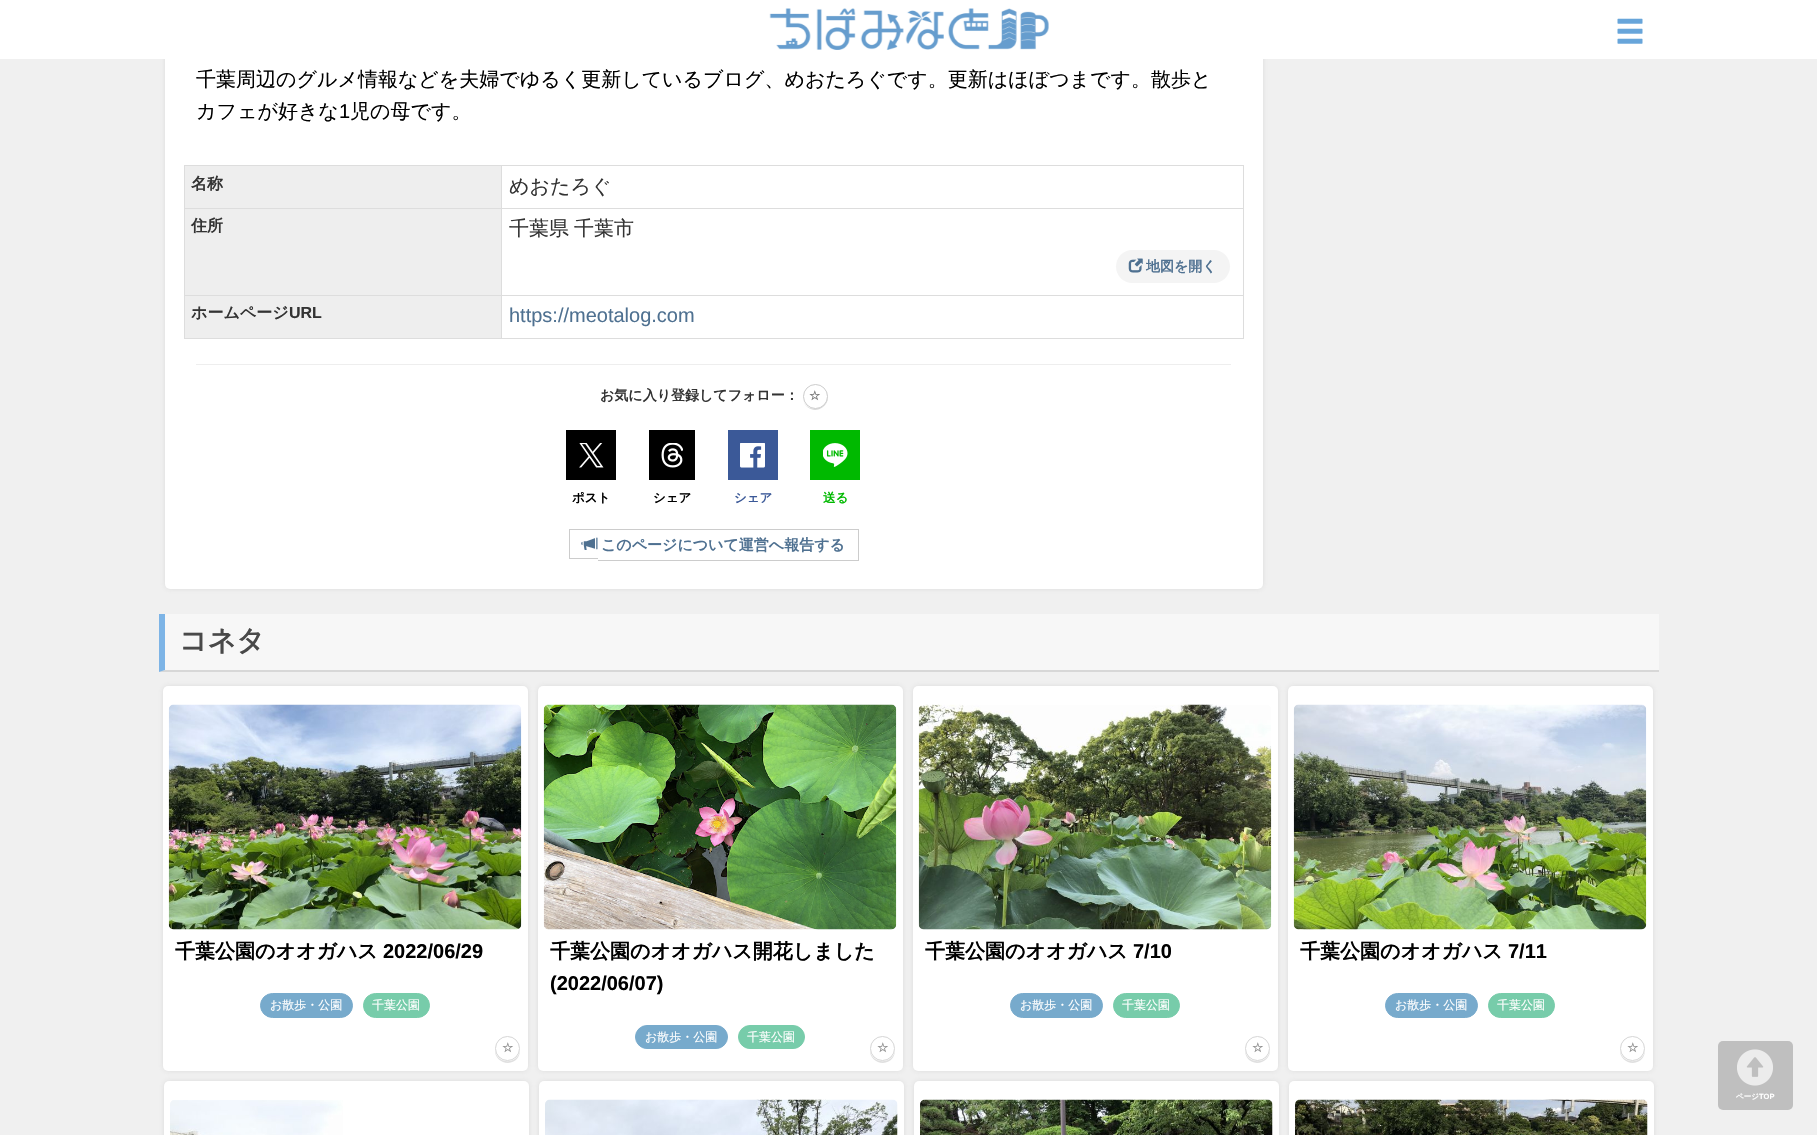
void draw(SkCanvas* canvas) {
    SkPaint paint;
    paint.setAntiAlias(true);
    canvas->clear(0xFFF0F0F0);
    paint.setColor(0x338C8C8C);
    paint.setMaskFilter(SkMaskFilter::MakeBlur(kNormal_SkBlurStyle, 2.5f));
    canvas->drawRoundRect(SkRect::MakeXYWH(165, 45, 1098, 544), 5, 5, paint);
    paint.setMaskFilter(nullptr);
    paint.setColor(0xFFFFFFFF);
    canvas->drawRoundRect(SkRect::MakeXYWH(165, 45, 1098, 544), 5, 5, paint);
    canvas->drawRect(SkRect::MakeXYWH(0, 0, 1817, 59), paint);
    canvas->drawImageRect(SkImages::DeferredFromEncodedData(SkData::MakeFromFileName("img1.png")), SkRect::MakeXYWH(769, 8, 280, 42), SkSamplingOptions());
    canvas->drawImageRect(SkImages::DeferredFromEncodedData(SkData::MakeFromFileName("img2.png")), SkRect::MakeXYWH(1617, 18, 26, 26), SkSamplingOptions());
    SkFont font1(fontMgr->matchFamilyStyle("WenQuanYi Zen Hei", SkFontStyle(500, SkFontStyle::kNormal_Width, SkFontStyle::kUpright_Slant)), 20);
    font1.setSubpixel(true);
    paint.setColor(0xFF000000);
    canvas->drawString("千葉周辺のグルメ情報などを夫婦でゆるく更新しているブログ、めおたろぐです。更新はほぼつまです。散歩と", 196, 86, font1, paint);
    canvas->drawString("カフェが好きな", 196, 118, font1, paint);
    SkFont font2(fontMgr->matchFamilyStyle("Liberation Sans", SkFontStyle::Normal()), 20);
    font2.setSubpixel(true);
    canvas->drawString("1", 339, 118, font2, paint);
    canvas->drawString("児の母です。", 350, 118, font1, paint);
    paint.setColor(0xFFDDDDDD);
    canvas->drawRect(SkRect::MakeXYWH(184, 165, 1060, 1), paint);
    canvas->drawRect(SkRect::MakeXYWH(1243, 165, 1, 174), paint);
    canvas->drawRect(SkRect::MakeXYWH(184, 338, 1060, 1), paint);
    canvas->drawRect(SkRect::MakeXYWH(184, 165, 1, 174), paint);
    paint.setColor(0xFFEEEEEE);
    canvas->drawRect(SkRect::MakeXYWH(185, 166, 316, 42), paint);
    SkFont font3(fontMgr->matchFamilyStyle("WenQuanYi Zen Hei", SkFontStyle::Bold()), 16);
    font3.setSubpixel(true);
    paint.setColor(0xFF333333);
    canvas->drawString("名称", 191, 189, font3, paint);
    paint.setColor(0xFFDDDDDD);
    canvas->drawRect(SkRect::MakeXYWH(501, 208, 743, 1), paint);
    canvas->drawRect(SkRect::MakeXYWH(501, 295, 743, 1), paint);
    canvas->drawRect(SkRect::MakeXYWH(501, 295, 1, 44), paint);
    canvas->drawRect(SkRect::MakeXYWH(184, 295, 319, 1), paint);
    canvas->drawRect(SkRect::MakeXYWH(501, 208, 1, 88), paint);
    canvas->drawRect(SkRect::MakeXYWH(184, 208, 319, 1), paint);
    canvas->drawRect(SkRect::MakeXYWH(501, 165, 1, 44), paint);
    paint.setColor(0xFF333333);
    canvas->drawString("めおたろぐ", 509, 193, font1, paint);
    paint.setColor(0xFFEEEEEE);
    canvas->drawRect(SkRect::MakeXYWH(185, 209, 316, 86), paint);
    paint.setColor(0xFF333333);
    canvas->drawString("住所", 191, 231, font3, paint);
    canvas->drawString("千葉県", 509, 235, font1, paint);
    canvas->drawString("千葉市", 574, 235, font1, paint);
    paint.setColor(0xFFF4F4F4);
    canvas->drawRoundRect(SkRect::MakeXYWH(1116, 250, 114, 33), 16.5f, 16.5f, paint);
    canvas->drawImageRect(SkImages::DeferredFromEncodedData(SkData::MakeFromFileName("img3.png")), SkRect::MakeXYWH(1128, 258, 15, 15), SkSamplingOptions());
    SkFont font4(fontMgr->matchFamilyStyle("WenQuanYi Zen Hei", SkFontStyle::Bold()), 14);
    font4.setSubpixel(true);
    paint.setColor(0xFF4F7191);
    canvas->drawString("地図を開く", 1146, 271, font4, paint);
    paint.setColor(0xFFEEEEEE);
    canvas->drawRect(SkRect::MakeXYWH(185, 296, 316, 42), paint);
    paint.setColor(0xFF333333);
    canvas->drawString("ホームページ", 191, 318, font3, paint);
    SkFont font5(fontMgr->matchFamilyStyle("Liberation Sans", SkFontStyle::Bold()), 16);
    font5.setSubpixel(true);
    canvas->drawString("URL", 289, 318, font5, paint);
    paint.setColor(0xFF4F7191);
    canvas->drawString("https://meotalog.com", 509, 322, font2, paint);
    paint.setColor(0xFFEEEEEE);
    canvas->drawRect(SkRect::MakeXYWH(196, 364, 1035, 1), paint);
    paint.setColor(0xFF333333);
    canvas->drawString("お気に入り登録してフォロー：", 600, 400, font4, paint);
    paint.setColor(0xFFD9D9D9);
    canvas->drawPath(SkPathBuilder().moveTo(803.5f, 401.5f).cubicTo(804.5f, 404, 806, 406, 808, 407.5f).cubicTo(818.5f, 415, 832, 403.5f, 827, 392).cubicTo(832, 407, 810, 415.5f, 803.5f, 401.5f).close().detach(), paint);
    paint.setColor(0xFFFFFFFF);
    canvas->drawCircle(815.5f, 396.5f, 12, paint);
    paint.setStyle(SkPaint::kStroke_Style);
    paint.setStrokeWidth(1);
    paint.setColor(0xFFCCCCCC);
    canvas->drawCircle(815.5f, 396.5f, 12, paint);
    SkFont font6(fontMgr->matchFamilyStyle("DejaVu Sans", SkFontStyle::Bold()), 12.5f);
    font6.setSubpixel(true);
    paint.setStyle(SkPaint::kFill_Style);
    paint.setColor(0xFF777777);
    canvas->drawString("☆", 809, 400, font6, paint);
    paint.setColor(0xFF000000);
    canvas->drawRect(SkRect::MakeXYWH(566, 430, 50, 50), paint);
    canvas->drawImageRect(SkImages::DeferredFromEncodedData(SkData::MakeFromFileName("img4.png")), SkRect::MakeXYWH(579, 443, 25, 25), SkSamplingOptions());
    canvas->drawRect(SkRect::MakeXYWH(649, 430, 46, 50), paint);
    canvas->drawImageRect(SkImages::DeferredFromEncodedData(SkData::MakeFromFileName("img5.png")), SkRect::MakeXYWH(661, 443, 22, 25), SkSamplingOptions());
    paint.setColor(0xFF3B5998);
    canvas->drawRect(SkRect::MakeXYWH(728, 430, 50, 50), paint);
    canvas->drawImageRect(SkImages::DeferredFromEncodedData(SkData::MakeFromFileName("img6.png")), SkRect::MakeXYWH(740, 443, 25, 25), SkSamplingOptions());
    paint.setColor(0xFF00B900);
    canvas->drawRect(SkRect::MakeXYWH(810, 430, 50, 50), paint);
    canvas->drawImageRect(SkImages::DeferredFromEncodedData(SkData::MakeFromFileName("img7.png")), SkRect::MakeXYWH(823, 443, 25, 24), SkSamplingOptions());
    SkFont font7(fontMgr->matchFamilyStyle("WenQuanYi Zen Hei", SkFontStyle::Bold()), 12.5f);
    font7.setSubpixel(true);
    paint.setColor(0xFF000000);
    canvas->drawString("ポスト", 572, 502, font7, paint);
    canvas->drawString("シェア", 653, 502, font7, paint);
    paint.setColor(0xFF3B5998);
    canvas->drawString("シェア", 734, 502, font7, paint);
    paint.setColor(0xFF00B900);
    canvas->drawString("送る", 823, 502, font7, paint);
    paint.setColor(0xFFCCCCCC);
    canvas->drawRect(SkRect::MakeXYWH(569, 529, 290, 1), paint);
    canvas->drawRect(SkRect::MakeXYWH(569, 558, 29, 1), paint);
    canvas->drawRect(SkRect::MakeXYWH(569, 529, 1, 30), paint);
    canvas->drawRect(SkRect::MakeXYWH(858, 529, 1, 32), paint);
    canvas->drawRect(SkRect::MakeXYWH(598, 560, 261, 1), paint);
    canvas->drawImageRect(SkImages::DeferredFromEncodedData(SkData::MakeFromFileName("img8.png")), SkRect::MakeXYWH(581, 537, 17, 13), SkSamplingOptions());
    SkFont font8(fontMgr->matchFamilyStyle("WenQuanYi Zen Hei", SkFontStyle::Bold()), 15);
    font8.setSubpixel(true);
    paint.setColor(0xFF4F7191);
    canvas->drawString("このページについて運営へ報告する", 601, 550, font8, paint);
    paint.setColor(0xFFF7F7F7);
    canvas->drawRect(SkRect::MakeXYWH(165, 614, 1494, 56), paint);
    paint.setColor(0xFFD7D7D7);
    canvas->drawPath(SkPathBuilder().moveTo(1659, 672).lineTo(159, 672).lineTo(165, 670).lineTo(1659, 670).close().detach(), paint);
    paint.setColor(0xFF7DB4E6);
    canvas->drawPath(SkPathBuilder().moveTo(159, 672).lineTo(159, 614).lineTo(165, 614).lineTo(165, 670).close().detach(), paint);
    SkFont font9(fontMgr->matchFamilyStyle("WenQuanYi Zen Hei", SkFontStyle::Bold()), 28);
    font9.setSubpixel(true);
    paint.setColor(0xFF494949);
    canvas->drawString("コネタ", 179, 650, font9, paint);
    paint.setColor(0x338C8C8C);
    paint.setMaskFilter(SkMaskFilter::MakeBlur(kNormal_SkBlurStyle, 2.5f));
    canvas->drawRoundRect(SkRect::MakeXYWH(163, 686, 365, 385), 5, 5, paint);
    paint.setMaskFilter(nullptr);
    paint.setColor(0xFFFFFFFF);
    canvas->drawRoundRect(SkRect::MakeXYWH(163, 686, 365, 385), 5, 5, paint);
    canvas->drawImageRect(SkImages::DeferredFromEncodedData(SkData::MakeFromFileName("img9.png")), SkRect::MakeXYWH(168, 704, 354, 226), SkSamplingOptions());
    SkFont font10(fontMgr->matchFamilyStyle("WenQuanYi Zen Hei", SkFontStyle::Bold()), 20);
    font10.setSubpixel(true);
    paint.setColor(0xFF000000);
    canvas->drawString("千葉公園のオオガハス", 175, 958, font10, paint);
    SkFont font11(fontMgr->matchFamilyStyle("Liberation Sans", SkFontStyle::Bold()), 20);
    font11.setSubpixel(true);
    canvas->drawString("2022/06/29", 383, 958, font11, paint);
    paint.setColor(0xFF77AACC);
    canvas->drawRoundRect(SkRect::MakeXYWH(260.5f, 993.5f, 92, 24), 12, 12, paint);
    paint.setStyle(SkPaint::kStroke_Style);
    canvas->drawRoundRect(SkRect::MakeXYWH(260.5f, 993.5f, 92, 24), 12, 12, paint);
    SkFont font12(fontMgr->matchFamilyStyle("WenQuanYi Zen Hei", SkFontStyle(500, SkFontStyle::kNormal_Width, SkFontStyle::kUpright_Slant)), 12);
    font12.setSubpixel(true);
    paint.setStyle(SkPaint::kFill_Style);
    paint.setColor(0xFFFFFFFF);
    canvas->drawString("お散歩・公園", 270, 1009, font12, paint);
    paint.setColor(0xFF77CCAA);
    canvas->drawRoundRect(SkRect::MakeXYWH(363.5f, 993.5f, 66, 24), 12, 12, paint);
    paint.setStyle(SkPaint::kStroke_Style);
    canvas->drawRoundRect(SkRect::MakeXYWH(363.5f, 993.5f, 66, 24), 12, 12, paint);
    paint.setStyle(SkPaint::kFill_Style);
    paint.setColor(0xFFFFFFFF);
    canvas->drawString("千葉公園", 372, 1009, font12, paint);
    paint.setColor(0xFFE0E0E0);
    canvas->drawPath(SkPathBuilder().moveTo(495, 1049.5f).cubicTo(494, 1062, 511, 1068, 518, 1057.5f).cubicTo(519.5f, 1055, 520, 1052.5f, 520, 1049.5f).cubicTo(519, 1065, 496, 1065, 495, 1049.5f).close().detach(), paint);
    paint.setColor(0xFFFFFFFF);
    canvas->drawCircle(507.5f, 1048.5f, 12, paint);
    paint.setStyle(SkPaint::kStroke_Style);
    paint.setColor(0xFFD6D6D6);
    canvas->drawCircle(507.5f, 1048.5f, 12, paint);
    paint.setStyle(SkPaint::kFill_Style);
    paint.setColor(0xFF929292);
    canvas->drawString("☆", 502, 1052, font6, paint);
    paint.setColor(0x338C8C8C);
    paint.setMaskFilter(SkMaskFilter::MakeBlur(kNormal_SkBlurStyle, 2.5f));
    canvas->drawRoundRect(SkRect::MakeXYWH(538, 686, 365, 385), 5, 5, paint);
    paint.setMaskFilter(nullptr);
    paint.setColor(0xFFFFFFFF);
    canvas->drawRoundRect(SkRect::MakeXYWH(538, 686, 365, 385), 5, 5, paint);
    canvas->drawImageRect(SkImages::DeferredFromEncodedData(SkData::MakeFromFileName("img10.png")), SkRect::MakeXYWH(543, 704, 354, 226), SkSamplingOptions());
    paint.setColor(0xFF000000);
    canvas->drawString("千葉公園のオオガハス開花しました", 550, 958, font10, paint);
    canvas->drawString("(2022/06/07)", 550, 990, font11, paint);
    paint.setColor(0xFF77AACC);
    canvas->drawRoundRect(SkRect::MakeXYWH(635.5f, 1025.5f, 92, 23), 11.5f, 11.5f, paint);
    paint.setStyle(SkPaint::kStroke_Style);
    canvas->drawRoundRect(SkRect::MakeXYWH(635.5f, 1025.5f, 92, 23), 11.5f, 11.5f, paint);
    paint.setStyle(SkPaint::kFill_Style);
    paint.setColor(0xFFFFFFFF);
    canvas->drawString("お散歩・公園", 645, 1041, font12, paint);
    paint.setColor(0xFF77CCAA);
    canvas->drawRoundRect(SkRect::MakeXYWH(738.5f, 1025.5f, 66, 23), 11.5f, 11.5f, paint);
    paint.setStyle(SkPaint::kStroke_Style);
    canvas->drawRoundRect(SkRect::MakeXYWH(738.5f, 1025.5f, 66, 23), 11.5f, 11.5f, paint);
    paint.setStyle(SkPaint::kFill_Style);
    paint.setColor(0xFFFFFFFF);
    canvas->drawString("千葉公園", 747, 1041, font12, paint);
    paint.setColor(0xFFE0E0E0);
    canvas->drawPath(SkPathBuilder().moveTo(870, 1049.5f).cubicTo(869, 1062, 886, 1068, 893, 1057.5f).cubicTo(894.5f, 1055, 895, 1052.5f, 895, 1049.5f).cubicTo(894, 1065, 871, 1065, 870, 1049.5f).close().detach(), paint);
    paint.setColor(0xFFFFFFFF);
    canvas->drawCircle(882.5f, 1048.5f, 12, paint);
    paint.setStyle(SkPaint::kStroke_Style);
    paint.setColor(0xFFD6D6D6);
    canvas->drawCircle(882.5f, 1048.5f, 12, paint);
    paint.setStyle(SkPaint::kFill_Style);
    paint.setColor(0xFF929292);
    canvas->drawString("☆", 877, 1052, font6, paint);
    paint.setColor(0x338C8C8C);
    paint.setMaskFilter(SkMaskFilter::MakeBlur(kNormal_SkBlurStyle, 2.5f));
    canvas->drawRoundRect(SkRect::MakeXYWH(913, 686, 365, 385), 5, 5, paint);
    paint.setMaskFilter(nullptr);
    paint.setColor(0xFFFFFFFF);
    canvas->drawRoundRect(SkRect::MakeXYWH(913, 686, 365, 385), 5, 5, paint);
    canvas->drawImageRect(SkImages::DeferredFromEncodedData(SkData::MakeFromFileName("img11.png")), SkRect::MakeXYWH(918, 704, 354, 226), SkSamplingOptions());
    paint.setColor(0xFF000000);
    canvas->drawString("千葉公園のオオガハス", 925, 958, font10, paint);
    canvas->drawString("7/10", 1133, 958, font11, paint);
    paint.setColor(0xFF77AACC);
    canvas->drawRoundRect(SkRect::MakeXYWH(1010.5f, 993.5f, 92, 24), 12, 12, paint);
    paint.setStyle(SkPaint::kStroke_Style);
    canvas->drawRoundRect(SkRect::MakeXYWH(1010.5f, 993.5f, 92, 24), 12, 12, paint);
    paint.setStyle(SkPaint::kFill_Style);
    paint.setColor(0xFFFFFFFF);
    canvas->drawString("お散歩・公園", 1020, 1009, font12, paint);
    paint.setColor(0xFF77CCAA);
    canvas->drawRoundRect(SkRect::MakeXYWH(1113.5f, 993.5f, 66, 24), 12, 12, paint);
    paint.setStyle(SkPaint::kStroke_Style);
    canvas->drawRoundRect(SkRect::MakeXYWH(1113.5f, 993.5f, 66, 24), 12, 12, paint);
    paint.setStyle(SkPaint::kFill_Style);
    paint.setColor(0xFFFFFFFF);
    canvas->drawString("千葉公園", 1122, 1009, font12, paint);
    paint.setColor(0xFFE0E0E0);
    canvas->drawPath(SkPathBuilder().moveTo(1245, 1049.5f).cubicTo(1245, 1052.5f, 1245.5f, 1055, 1247, 1057.5f).cubicTo(1254, 1068, 1271, 1062, 1270, 1049.5f).cubicTo(1269, 1065, 1246, 1065, 1245, 1049.5f).close().detach(), paint);
    paint.setColor(0xFFFFFFFF);
    canvas->drawCircle(1257.5f, 1048.5f, 12, paint);
    paint.setStyle(SkPaint::kStroke_Style);
    paint.setColor(0xFFD6D6D6);
    canvas->drawCircle(1257.5f, 1048.5f, 12, paint);
    paint.setStyle(SkPaint::kFill_Style);
    paint.setColor(0xFF929292);
    canvas->drawString("☆", 1252, 1052, font6, paint);
    paint.setColor(0x338C8C8C);
    paint.setMaskFilter(SkMaskFilter::MakeBlur(kNormal_SkBlurStyle, 2.5f));
    canvas->drawRoundRect(SkRect::MakeXYWH(1288, 686, 365, 385), 5, 5, paint);
    paint.setMaskFilter(nullptr);
    paint.setColor(0xFFFFFFFF);
    canvas->drawRoundRect(SkRect::MakeXYWH(1288, 686, 365, 385), 5, 5, paint);
    canvas->drawImageRect(SkImages::DeferredFromEncodedData(SkData::MakeFromFileName("img12.png")), SkRect::MakeXYWH(1293, 704, 354, 226), SkSamplingOptions());
    paint.setColor(0xFF000000);
    canvas->drawString("千葉公園のオオガハス", 1300, 958, font10, paint);
    canvas->drawString("7/11", 1508, 958, font11, paint);
    paint.setColor(0xFF77AACC);
    canvas->drawRoundRect(SkRect::MakeXYWH(1385.5f, 993.5f, 92, 24), 12, 12, paint);
    paint.setStyle(SkPaint::kStroke_Style);
    canvas->drawRoundRect(SkRect::MakeXYWH(1385.5f, 993.5f, 92, 24), 12, 12, paint);
    paint.setStyle(SkPaint::kFill_Style);
    paint.setColor(0xFFFFFFFF);
    canvas->drawString("お散歩・公園", 1395, 1009, font12, paint);
    paint.setColor(0xFF77CCAA);
    canvas->drawRoundRect(SkRect::MakeXYWH(1488.5f, 993.5f, 66, 24), 12, 12, paint);
    paint.setStyle(SkPaint::kStroke_Style);
    canvas->drawRoundRect(SkRect::MakeXYWH(1488.5f, 993.5f, 66, 24), 12, 12, paint);
    paint.setStyle(SkPaint::kFill_Style);
    paint.setColor(0xFFFFFFFF);
    canvas->drawString("千葉公園", 1497, 1009, font12, paint);
    paint.setColor(0xFFE0E0E0);
    canvas->drawPath(SkPathBuilder().moveTo(1620, 1049.5f).cubicTo(1619, 1062, 1636, 1068, 1643, 1057.5f).cubicTo(1644.5f, 1055, 1645, 1052.5f, 1645, 1049.5f).cubicTo(1644, 1065, 1621, 1065, 1620, 1049.5f).close().detach(), paint);
    paint.setColor(0xFFFFFFFF);
    canvas->drawCircle(1632.5f, 1048.5f, 12, paint);
    paint.setStyle(SkPaint::kStroke_Style);
    paint.setColor(0xFFD6D6D6);
    canvas->drawCircle(1632.5f, 1048.5f, 12, paint);
    paint.setStyle(SkPaint::kFill_Style);
    paint.setColor(0xFF929292);
    canvas->drawString("☆", 1627, 1052, font6, paint);
    paint.setColor(0x338C8C8C);
    paint.setMaskFilter(SkMaskFilter::MakeBlur(kNormal_SkBlurStyle, 2.5f));
    canvas->drawRoundRect(SkRect::MakeXYWH(164, 1081, 365, 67), 5, 5, paint);
    paint.setMaskFilter(nullptr);
    paint.setColor(0xFFFFFFFF);
    canvas->drawRoundRect(SkRect::MakeXYWH(164, 1081, 365, 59), 5, 5, paint);
    canvas->drawImageRect(SkImages::DeferredFromEncodedData(SkData::MakeFromFileName("img13.png")), SkRect::MakeXYWH(170, 1100, 173, 35), SkSamplingOptions());
    paint.setColor(0x338C8C8C);
    paint.setMaskFilter(SkMaskFilter::MakeBlur(kNormal_SkBlurStyle, 2.5f));
    canvas->drawRoundRect(SkRect::MakeXYWH(539, 1081, 365, 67), 5, 5, paint);
    paint.setMaskFilter(nullptr);
    paint.setColor(0xFFFFFFFF);
    canvas->drawRoundRect(SkRect::MakeXYWH(539, 1081, 365, 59), 5, 5, paint);
    canvas->drawImageRect(SkImages::DeferredFromEncodedData(SkData::MakeFromFileName("img14.png")), SkRect::MakeXYWH(545, 1099, 353, 36), SkSamplingOptions());
    paint.setColor(0x338C8C8C);
    paint.setMaskFilter(SkMaskFilter::MakeBlur(kNormal_SkBlurStyle, 2.5f));
    canvas->drawRoundRect(SkRect::MakeXYWH(914, 1081, 365, 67), 5, 5, paint);
    paint.setMaskFilter(nullptr);
    paint.setColor(0xFFFFFFFF);
    canvas->drawRoundRect(SkRect::MakeXYWH(914, 1081, 365, 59), 5, 5, paint);
    canvas->drawImageRect(SkImages::DeferredFromEncodedData(SkData::MakeFromFileName("img15.png")), SkRect::MakeXYWH(920, 1099, 353, 36), SkSamplingOptions());
    paint.setColor(0x338C8C8C);
    paint.setMaskFilter(SkMaskFilter::MakeBlur(kNormal_SkBlurStyle, 2.5f));
    canvas->drawRoundRect(SkRect::MakeXYWH(1289, 1081, 365, 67), 5, 5, paint);
    paint.setMaskFilter(nullptr);
    paint.setColor(0xFFFFFFFF);
    canvas->drawRoundRect(SkRect::MakeXYWH(1289, 1081, 365, 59), 5, 5, paint);
    canvas->drawImageRect(SkImages::DeferredFromEncodedData(SkData::MakeFromFileName("img16.png")), SkRect::MakeXYWH(1295, 1099, 353, 36), SkSamplingOptions());
    paint.setColor(0xFFBFBFBF);
    canvas->drawRoundRect(SkRect::MakeXYWH(1718, 1041, 75, 69), 5, 5, paint);
    canvas->drawImageRect(SkImages::DeferredFromEncodedData(SkData::MakeFromFileName("img17.png")), SkRect::MakeXYWH(1737, 1049, 36, 37), SkSamplingOptions());
    SkFont font13(fontMgr->matchFamilyStyle("WenQuanYi Zen Hei", SkFontStyle::Bold()), 7.5f);
    font13.setSubpixel(true);
    paint.setColor(0xFFFFFFFF);
    canvas->drawString("ページ", 1736, 1099, font13, paint);
    SkFont font14(fontMgr->matchFamilyStyle("Liberation Sans", SkFontStyle::Bold()), 7.5f);
    font14.setSubpixel(true);
    canvas->drawString("TOP", 1759, 1099, font14, paint);
}
